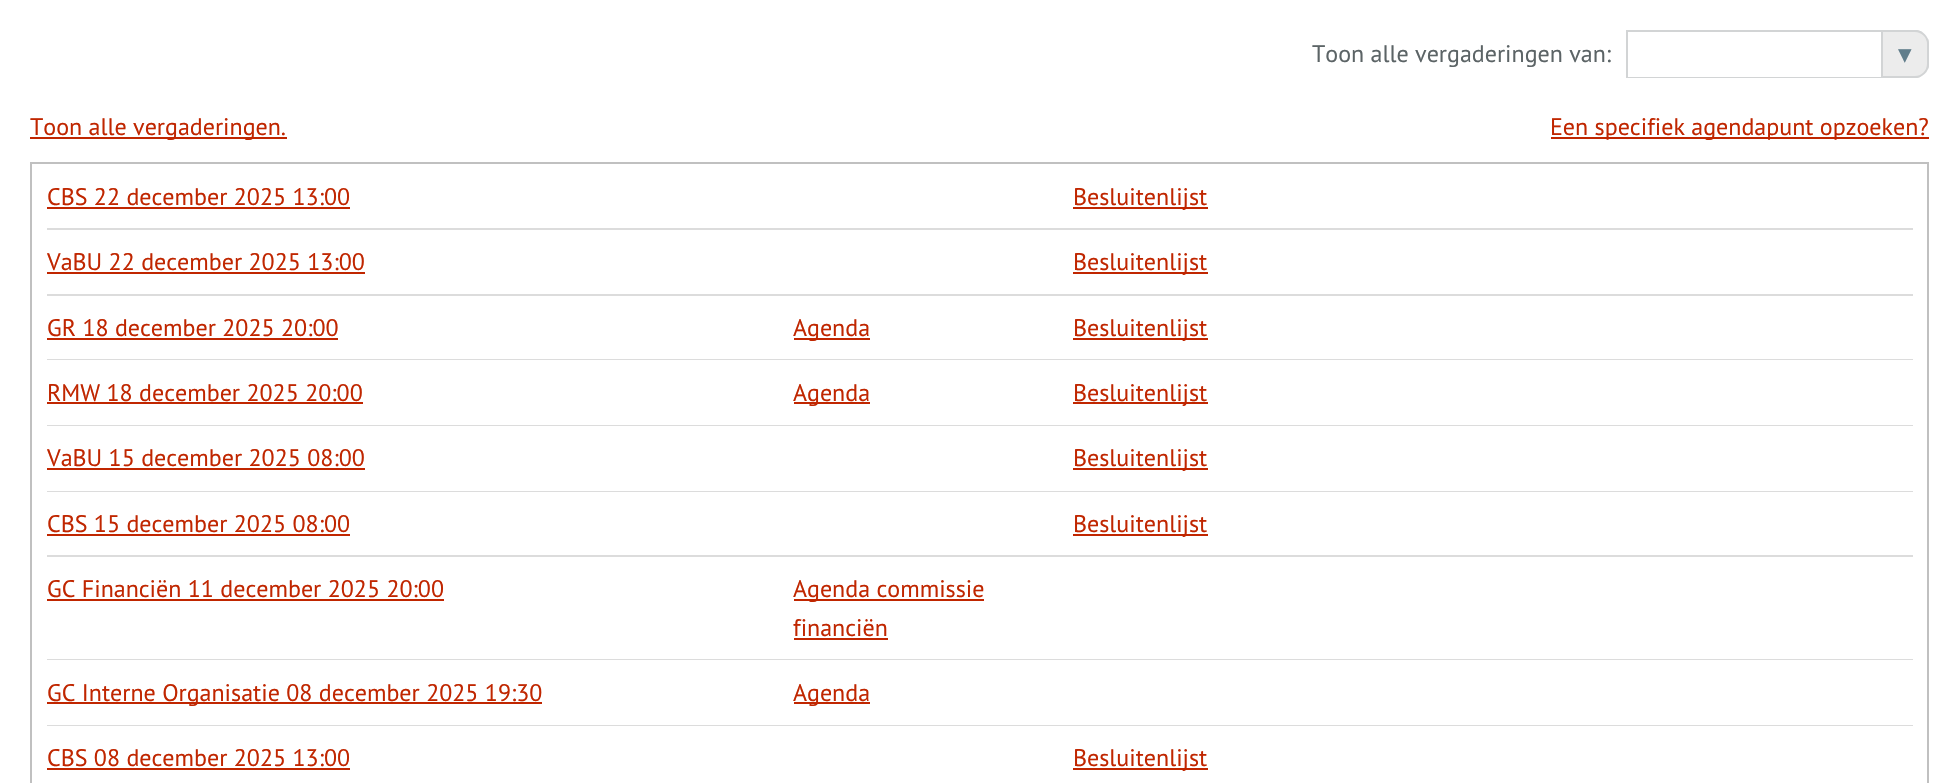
void draw(SkCanvas* canvas) {
    SkPaint paint;
    paint.setAntiAlias(true);
    canvas->clear(0xFFFFFFFF);
    SkFont font1(fontMgr->matchFamilyStyle("PT Sans", SkFontStyle::Normal()), 24);
    font1.setSubpixel(true);
    paint.setColor(0xFF5C6466);
    canvas->drawString("Toon alle vergaderingen van:", 1312, 62, font1, paint);
    paint.setStyle(SkPaint::kStroke_Style);
    paint.setStrokeWidth(2);
    paint.setColor(0xFFD2D4D5);
    canvas->drawPath(SkPathBuilder().moveTo(1627, 31).lineTo(1915, 31).cubicTo(1922, 31, 1928, 37, 1928, 44).lineTo(1928, 64).cubicTo(1928, 71, 1922, 77, 1915, 77).lineTo(1627, 77).close().detach(), paint);
    paint.setStyle(SkPaint::kFill_Style);
    paint.setColor(0xFFFFFFFF);
    canvas->drawRect(SkRect::MakeXYWH(1628, 32, 300, 45), paint);
    paint.setColor(0xFFECECEC);
    canvas->drawPath(SkPathBuilder().moveTo(1882, 31).lineTo(1915, 31).cubicTo(1922, 31, 1928, 37, 1928, 44).lineTo(1928, 64).cubicTo(1928, 71, 1922, 77, 1915, 77).lineTo(1882, 77).close().detach(), paint);
    paint.setStyle(SkPaint::kStroke_Style);
    paint.setColor(0xFFD2D4D5);
    canvas->drawPath(SkPathBuilder().moveTo(1882, 31).lineTo(1915, 31).cubicTo(1922, 31, 1928, 37, 1928, 44).lineTo(1928, 64).cubicTo(1928, 71, 1922, 77, 1915, 77).lineTo(1882, 77).close().detach(), paint);
    SkFont font2(fontMgr->matchFamilyStyle("DejaVu Sans", SkFontStyle::Normal()), 27);
    font2.setSubpixel(true);
    paint.setStyle(SkPaint::kFill_Style);
    paint.setColor(0xFF607D8B);
    canvas->drawString("▾", 1898, 63, font2, paint);
    paint.setColor(0xFFC02600);
    canvas->drawRect(SkRect::MakeXYWH(30, 137, 257, 2), paint);
    canvas->drawString("Toon alle vergaderingen.", 30, 135, font1, paint);
    canvas->drawRect(SkRect::MakeXYWH(1551, 137, 378, 2), paint);
    canvas->drawString("Een specifiek agendapunt opzoeken?", 1550, 135, font1, paint);
    paint.setStyle(SkPaint::kStroke_Style);
    paint.setColor(0xFFC0C0C0);
    canvas->drawRect(SkRect::MakeXYWH(31, 163, 1897, 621), paint);
    paint.setStyle(SkPaint::kFill_Style);
    paint.setColor(0xFFC02600);
    canvas->drawString("CBS 22 december 2025 13:00", 47, 205, font1, paint);
    canvas->drawRect(SkRect::MakeXYWH(47, 207, 303, 2), paint);
    canvas->drawRect(SkRect::MakeXYWH(1073, 207, 135, 2), paint);
    canvas->drawString("Besluitenlijst", 1073, 205, font1, paint);
    paint.setColor(0xFFDCDCDC);
    canvas->drawRect(SkRect::MakeXYWH(47, 228, 1866, 2), paint);
    paint.setColor(0xFFC02600);
    canvas->drawString("VaBU 22 december 2025 13:00", 47, 270, font1, paint);
    canvas->drawRect(SkRect::MakeXYWH(47, 272, 318, 2), paint);
    canvas->drawRect(SkRect::MakeXYWH(1073, 272, 135, 2), paint);
    canvas->drawString("Besluitenlijst", 1073, 270, font1, paint);
    paint.setColor(0xFFDCDCDC);
    canvas->drawRect(SkRect::MakeXYWH(47, 294, 1866, 2), paint);
    paint.setColor(0xFFC02600);
    canvas->drawString("GR 18 december 2025 20:00", 47, 336, font1, paint);
    canvas->drawRect(SkRect::MakeXYWH(47, 338, 291, 2), paint);
    canvas->drawRect(SkRect::MakeXYWH(794, 338, 76, 2), paint);
    canvas->drawString("Agenda", 793, 336, font1, paint);
    canvas->drawRect(SkRect::MakeXYWH(1073, 338, 135, 2), paint);
    canvas->drawString("Besluitenlijst", 1073, 336, font1, paint);
    paint.setColor(0xFFDCDCDC);
    canvas->drawRect(SkRect::MakeXYWH(47, 359, 1866, 1), paint);
    paint.setColor(0xFFC02600);
    canvas->drawString("RMW 18 december 2025 20:00", 47, 401, font1, paint);
    canvas->drawRect(SkRect::MakeXYWH(47, 402, 316, 2), paint);
    canvas->drawRect(SkRect::MakeXYWH(794, 402, 76, 2), paint);
    canvas->drawString("Agenda", 793, 401, font1, paint);
    canvas->drawRect(SkRect::MakeXYWH(1073, 402, 135, 2), paint);
    canvas->drawString("Besluitenlijst", 1073, 401, font1, paint);
    paint.setColor(0xFFDCDCDC);
    canvas->drawRect(SkRect::MakeXYWH(47, 425, 1866, 1), paint);
    paint.setColor(0xFFC02600);
    canvas->drawString("VaBU 15 december 2025 08:00", 47, 466, font1, paint);
    canvas->drawRect(SkRect::MakeXYWH(47, 468, 318, 2), paint);
    canvas->drawRect(SkRect::MakeXYWH(1073, 468, 135, 2), paint);
    canvas->drawString("Besluitenlijst", 1073, 466, font1, paint);
    paint.setColor(0xFFDCDCDC);
    canvas->drawRect(SkRect::MakeXYWH(47, 491, 1866, 1), paint);
    paint.setColor(0xFFC02600);
    canvas->drawString("CBS 15 december 2025 08:00", 47, 532, font1, paint);
    canvas->drawRect(SkRect::MakeXYWH(47, 534, 303, 2), paint);
    canvas->drawRect(SkRect::MakeXYWH(1073, 534, 135, 2), paint);
    canvas->drawString("Besluitenlijst", 1073, 532, font1, paint);
    paint.setColor(0xFFDCDCDC);
    canvas->drawRect(SkRect::MakeXYWH(47, 555, 1866, 2), paint);
    paint.setColor(0xFFC02600);
    canvas->drawString("GC Financiën 11 december 2025 20:00", 47, 597, font1, paint);
    canvas->drawRect(SkRect::MakeXYWH(47, 599, 397, 2), paint);
    canvas->drawRect(SkRect::MakeXYWH(794, 599, 190, 2), paint);
    canvas->drawString("Agenda commissie", 793, 597, font1, paint);
    canvas->drawString("financiën", 793, 636, font1, paint);
    canvas->drawRect(SkRect::MakeXYWH(794, 638, 94, 2), paint);
    paint.setColor(0xFFDCDCDC);
    canvas->drawRect(SkRect::MakeXYWH(47, 659, 1866, 1), paint);
    paint.setColor(0xFFC02600);
    canvas->drawRect(SkRect::MakeXYWH(47, 702, 495, 2), paint);
    canvas->drawString("GC Interne Organisatie 08 december 2025 19:30", 47, 701, font1, paint);
    canvas->drawRect(SkRect::MakeXYWH(794, 702, 76, 2), paint);
    canvas->drawString("Agenda", 793, 701, font1, paint);
    paint.setColor(0xFFDCDCDC);
    canvas->drawRect(SkRect::MakeXYWH(47, 725, 1866, 1), paint);
    paint.setColor(0xFFC02600);
    canvas->drawString("CBS 08 december 2025 13:00", 47, 766, font1, paint);
    canvas->drawRect(SkRect::MakeXYWH(47, 768, 303, 2), paint);
    canvas->drawRect(SkRect::MakeXYWH(1073, 768, 135, 2), paint);
    canvas->drawString("Besluitenlijst", 1073, 766, font1, paint);
}
